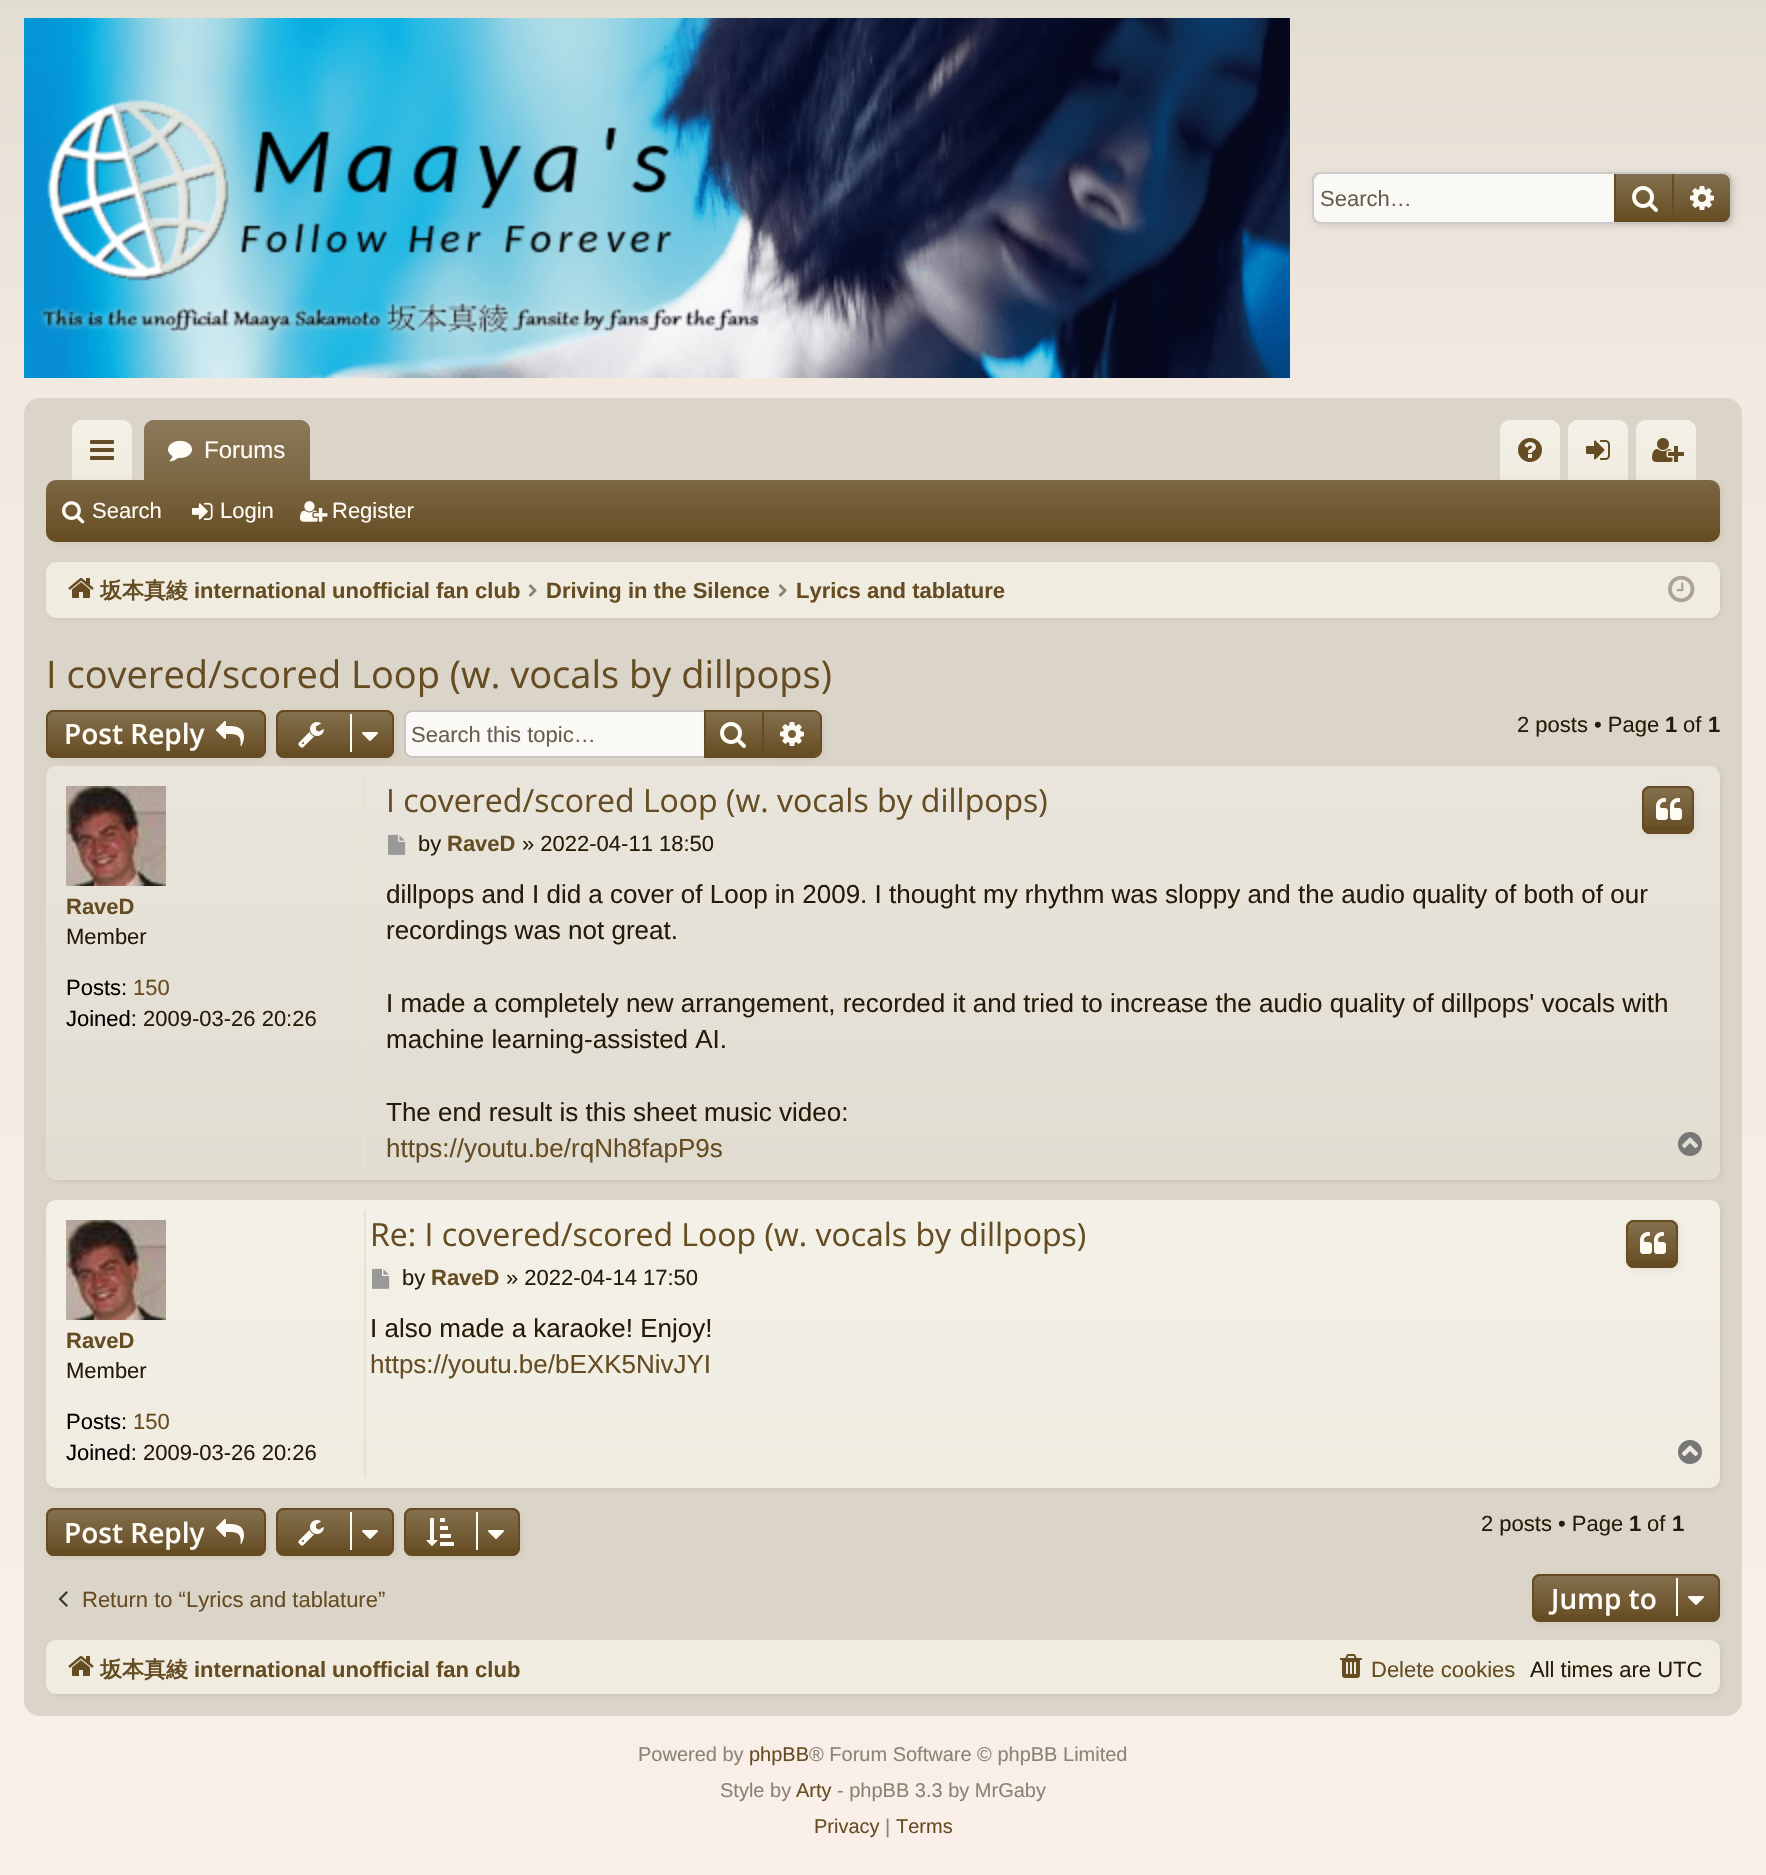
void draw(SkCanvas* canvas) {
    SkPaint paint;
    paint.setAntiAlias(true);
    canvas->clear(0xFFFFFFFF);
    {
        const SkColor colors[] = {0xFFE2DDD1, 0xFFF3E9E2, 0xFFFBEFE9};
        const float stops[] = {0, 0.21f, 1};
        const SkPoint ends[] = {{883, -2}, {883, 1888}};
        paint.setShader(SkGradientShader::MakeLinear(ends, colors, stops, 3, SkTileMode::kClamp));
        paint.setAlpha(255);
    }
    canvas->drawRect(SkRect::MakeXYWH(0, 0, 1766, 1875), paint);
    canvas->drawImageRect(SkImages::DeferredFromEncodedData(SkData::MakeFromFileName("img1.png")), SkRect::MakeXYWH(24, 18, 1266, 360), SkSamplingOptions());
    paint.setShader(nullptr);
    paint.setColor(0x1A000000);
    paint.setMaskFilter(SkMaskFilter::MakeBlur(kNormal_SkBlurStyle, 3));
    canvas->drawRoundRect(SkRect::MakeXYWH(1314, 174, 420, 52), 8, 8, paint);
    paint.setMaskFilter(nullptr);
    paint.setStyle(SkPaint::kStroke_Style);
    paint.setStrokeWidth(2);
    paint.setColor(0xFFCCCCCC);
    canvas->drawRoundRect(SkRect::MakeXYWH(1313, 173, 418, 50), 7, 7, paint);
    paint.setStyle(SkPaint::kFill_Style);
    paint.setColor(0xFFFBF9F6);
    canvas->drawPath(SkPathBuilder().moveTo(1322, 174).lineTo(1614, 174).lineTo(1614, 222).lineTo(1322, 222).cubicTo(1317.5f, 222, 1314, 218.5f, 1314, 214).lineTo(1314, 182).cubicTo(1314, 177.5f, 1317.5f, 174, 1322, 174).close().detach(), paint);
    SkFont font1(fontMgr->matchFamilyStyle("Liberation Sans", SkFontStyle::Normal()), 22);
    font1.setSubpixel(true);
    paint.setColor(0xFF675E4F);
    canvas->drawString("Search…", 1320, 206, font1, paint);
    paint.setColor(0x1A654C22);
    paint.setMaskFilter(SkMaskFilter::MakeBlur(kNormal_SkBlurStyle, 3));
    canvas->drawRect(SkRect::MakeXYWH(1616, 176, 60, 48), paint);
    paint.setMaskFilter(nullptr);
    {
        const SkColor colors[] = {0xFF84704E, 0xFF654C22};
        const float stops[] = {0, 1};
        const SkPoint ends[] = {{1644, 174}, {1644, 222}};
        paint.setShader(SkGradientShader::MakeLinear(ends, colors, stops, 2, SkTileMode::kClamp));
        paint.setAlpha(255);
    }
    canvas->drawRect(SkRect::MakeXYWH(1616, 174, 56, 48), paint);
    paint.setShader(nullptr);
    paint.setColor(0xFF654C22);
    canvas->drawRect(SkRect::MakeXYWH(1672, 174, 2, 48), paint);
    canvas->drawRect(SkRect::MakeXYWH(1614, 174, 2, 48), paint);
    canvas->drawImageRect(SkImages::DeferredFromEncodedData(SkData::MakeFromFileName("img2.png")), SkRect::MakeXYWH(1632, 186, 26, 26), SkSamplingOptions());
    paint.setColor(0x1A654C22);
    paint.setMaskFilter(SkMaskFilter::MakeBlur(kNormal_SkBlurStyle, 3));
    canvas->drawRoundRect(SkRect::MakeXYWH(1676, 176, 56, 48), 8, 8, paint);
    paint.setMaskFilter(nullptr);
    paint.setColor(0xFF654C22);
    canvas->drawPath(SkPathBuilder().moveTo(1674, 174).lineTo(1722, 174).cubicTo(1726.5f, 174, 1730, 177.5f, 1730, 182).lineTo(1730, 214).cubicTo(1730, 218.5f, 1726.5f, 222, 1722, 222).lineTo(1674, 222).close().detach(), paint);
    {
        const SkColor colors[] = {0x33FFFFFF, 0x00FFFFFF};
        const float stops[] = {0, 1};
        const SkPoint ends[] = {{1702, 174}, {1702, 222}};
        paint.setShader(SkGradientShader::MakeLinear(ends, colors, stops, 2, SkTileMode::kClamp));
        paint.setAlpha(255);
    }
    canvas->drawPath(SkPathBuilder().moveTo(1674, 174).lineTo(1722, 174).cubicTo(1726.5f, 174, 1730, 177.5f, 1730, 182).lineTo(1730, 214).cubicTo(1730, 218.5f, 1726.5f, 222, 1722, 222).lineTo(1674, 222).close().detach(), paint);
    canvas->drawImageRect(SkImages::DeferredFromEncodedData(SkData::MakeFromFileName("img3.png")), SkRect::MakeXYWH(1690, 186, 24, 24), SkSamplingOptions());
    paint.setShader(nullptr);
    paint.setColor(0xFFDBD5C9);
    canvas->drawRoundRect(SkRect::MakeXYWH(25, 399, 1716, 1316), 15, 15, paint);
    paint.setStyle(SkPaint::kStroke_Style);
    canvas->drawRoundRect(SkRect::MakeXYWH(25, 399, 1716, 1316), 15, 15, paint);
    paint.setStyle(SkPaint::kFill_Style);
    paint.setColor(0xFFF0ECE0);
    canvas->drawPath(SkPathBuilder().moveTo(82, 420).lineTo(122, 420).cubicTo(127.5f, 420, 132, 424.5f, 132, 430).lineTo(132, 480).lineTo(72, 480).lineTo(72, 430).cubicTo(72, 424.5f, 76.5f, 420, 82, 420).close().detach(), paint);
    {
        const SkColor colors[] = {0x40FFFFFF, 0x00FFFFFF};
        const float stops[] = {0, 1};
        const SkPoint ends[] = {{102, 420}, {102, 480}};
        paint.setShader(SkGradientShader::MakeLinear(ends, colors, stops, 2, SkTileMode::kClamp));
        paint.setAlpha(255);
    }
    canvas->drawPath(SkPathBuilder().moveTo(82, 420).lineTo(122, 420).cubicTo(127.5f, 420, 132, 424.5f, 132, 430).lineTo(132, 480).lineTo(72, 480).lineTo(72, 430).cubicTo(72, 424.5f, 76.5f, 420, 82, 420).close().detach(), paint);
    canvas->drawImageRect(SkImages::DeferredFromEncodedData(SkData::MakeFromFileName("img4.png")), SkRect::MakeXYWH(90, 440, 24, 20), SkSamplingOptions());
    paint.setShader(nullptr);
    paint.setColor(0xFF654C22);
    canvas->drawPath(SkPathBuilder().moveTo(154, 420).lineTo(300, 420).cubicTo(305.5f, 420, 310, 424.5f, 310, 430).lineTo(310, 480).lineTo(144, 480).lineTo(144, 430).cubicTo(144, 424.5f, 148.5f, 420, 154, 420).close().detach(), paint);
    {
        const SkColor colors[] = {0x40FFFFFF, 0x26FFFFFF};
        const float stops[] = {0, 1};
        const SkPoint ends[] = {{227, 420}, {227, 480}};
        paint.setShader(SkGradientShader::MakeLinear(ends, colors, stops, 2, SkTileMode::kClamp));
        paint.setAlpha(255);
    }
    canvas->drawPath(SkPathBuilder().moveTo(154, 420).lineTo(300, 420).cubicTo(305.5f, 420, 310, 424.5f, 310, 430).lineTo(310, 480).lineTo(144, 480).lineTo(144, 430).cubicTo(144, 424.5f, 148.5f, 420, 154, 420).close().detach(), paint);
    canvas->drawImageRect(SkImages::DeferredFromEncodedData(SkData::MakeFromFileName("img5.png")), SkRect::MakeXYWH(168, 440, 24, 22), SkSamplingOptions());
    SkFont font2(fontMgr->matchFamilyStyle("Liberation Sans", SkFontStyle::Normal()), 24);
    font2.setSubpixel(true);
    paint.setShader(nullptr);
    paint.setColor(0xFFFEFBF5);
    canvas->drawString("Forums", 204, 458, font2, paint);
    paint.setColor(0xFFF0ECE0);
    canvas->drawPath(SkPathBuilder().moveTo(1510, 420).lineTo(1550, 420).cubicTo(1555.5f, 420, 1560, 424.5f, 1560, 430).lineTo(1560, 480).lineTo(1500, 480).lineTo(1500, 430).cubicTo(1500, 424.5f, 1504.5f, 420, 1510, 420).close().detach(), paint);
    {
        const SkColor colors[] = {0x40FFFFFF, 0x00FFFFFF};
        const float stops[] = {0, 1};
        const SkPoint ends[] = {{1530, 420}, {1530, 480}};
        paint.setShader(SkGradientShader::MakeLinear(ends, colors, stops, 2, SkTileMode::kClamp));
        paint.setAlpha(255);
    }
    canvas->drawPath(SkPathBuilder().moveTo(1510, 420).lineTo(1550, 420).cubicTo(1555.5f, 420, 1560, 424.5f, 1560, 430).lineTo(1560, 480).lineTo(1500, 480).lineTo(1500, 430).cubicTo(1500, 424.5f, 1504.5f, 420, 1510, 420).close().detach(), paint);
    paint.setShader(nullptr);
    paint.setColor(0xFFF0ECE0);
    canvas->drawPath(SkPathBuilder().moveTo(1578, 420).lineTo(1618, 420).cubicTo(1623.5f, 420, 1628, 424.5f, 1628, 430).lineTo(1628, 480).lineTo(1568, 480).lineTo(1568, 430).cubicTo(1568, 424.5f, 1572.5f, 420, 1578, 420).close().detach(), paint);
    {
        const SkColor colors[] = {0x40FFFFFF, 0x00FFFFFF};
        const float stops[] = {0, 1};
        const SkPoint ends[] = {{1598, 420}, {1598, 480}};
        paint.setShader(SkGradientShader::MakeLinear(ends, colors, stops, 2, SkTileMode::kClamp));
        paint.setAlpha(255);
    }
    canvas->drawPath(SkPathBuilder().moveTo(1578, 420).lineTo(1618, 420).cubicTo(1623.5f, 420, 1628, 424.5f, 1628, 430).lineTo(1628, 480).lineTo(1568, 480).lineTo(1568, 430).cubicTo(1568, 424.5f, 1572.5f, 420, 1578, 420).close().detach(), paint);
    paint.setShader(nullptr);
    paint.setColor(0xFFF0ECE0);
    canvas->drawPath(SkPathBuilder().moveTo(1646, 420).lineTo(1686, 420).cubicTo(1691.5f, 420, 1696, 424.5f, 1696, 430).lineTo(1696, 480).lineTo(1636, 480).lineTo(1636, 430).cubicTo(1636, 424.5f, 1640.5f, 420, 1646, 420).close().detach(), paint);
    {
        const SkColor colors[] = {0x40FFFFFF, 0x00FFFFFF};
        const float stops[] = {0, 1};
        const SkPoint ends[] = {{1666, 420}, {1666, 480}};
        paint.setShader(SkGradientShader::MakeLinear(ends, colors, stops, 2, SkTileMode::kClamp));
        paint.setAlpha(255);
    }
    canvas->drawPath(SkPathBuilder().moveTo(1646, 420).lineTo(1686, 420).cubicTo(1691.5f, 420, 1696, 424.5f, 1696, 430).lineTo(1696, 480).lineTo(1636, 480).lineTo(1636, 430).cubicTo(1636, 424.5f, 1640.5f, 420, 1646, 420).close().detach(), paint);
    paint.setShader(nullptr);
    paint.setColor(0x1A654C22);
    paint.setMaskFilter(SkMaskFilter::MakeBlur(kNormal_SkBlurStyle, 3));
    canvas->drawRoundRect(SkRect::MakeXYWH(48, 482, 1674, 62), 10, 10, paint);
    paint.setMaskFilter(nullptr);
    paint.setColor(0xFF654C22);
    canvas->drawRoundRect(SkRect::MakeXYWH(46, 480, 1674, 62), 10, 10, paint);
    {
        const SkColor colors[] = {0x26FFFFFF, 0x00FFFFFF};
        const float stops[] = {0, 1};
        const SkPoint ends[] = {{883, 480}, {883, 542}};
        paint.setShader(SkGradientShader::MakeLinear(ends, colors, stops, 2, SkTileMode::kClamp));
        paint.setAlpha(255);
    }
    canvas->drawRoundRect(SkRect::MakeXYWH(46, 480, 1674, 62), 10, 10, paint);
    paint.setShader(nullptr);
    paint.setColor(0xFF654C22);
    canvas->drawPath(SkPathBuilder().moveTo(148, 478).lineTo(306, 478).cubicTo(308, 478, 310, 480, 310, 482).lineTo(144, 482).cubicTo(144, 480, 146, 478, 148, 478).close().detach(), paint);
    paint.setColor(0x26FFFFFF);
    canvas->drawPath(SkPathBuilder().moveTo(148, 478).lineTo(306, 478).cubicTo(308, 478, 310, 480, 310, 482).lineTo(144, 482).cubicTo(144, 480, 146, 478, 148, 478).close().detach(), paint);
    canvas->drawImageRect(SkImages::DeferredFromEncodedData(SkData::MakeFromFileName("img6.png")), SkRect::MakeXYWH(1518, 438, 24, 24), SkSamplingOptions());
    canvas->drawImageRect(SkImages::DeferredFromEncodedData(SkData::MakeFromFileName("img7.png")), SkRect::MakeXYWH(1586, 440, 24, 20), SkSamplingOptions());
    canvas->drawImageRect(SkImages::DeferredFromEncodedData(SkData::MakeFromFileName("img8.png")), SkRect::MakeXYWH(1652, 438, 32, 24), SkSamplingOptions());
    canvas->drawImageRect(SkImages::DeferredFromEncodedData(SkData::MakeFromFileName("img9.png")), SkRect::MakeXYWH(62, 501, 23, 23), SkSamplingOptions());
    paint.setColor(0xFFFEFBF5);
    canvas->drawString("Search", 92, 518, font1, paint);
    canvas->drawImageRect(SkImages::DeferredFromEncodedData(SkData::MakeFromFileName("img10.png")), SkRect::MakeXYWH(192, 502, 21, 18), SkSamplingOptions());
    canvas->drawString("Login", 220, 518, font1, paint);
    canvas->drawImageRect(SkImages::DeferredFromEncodedData(SkData::MakeFromFileName("img11.png")), SkRect::MakeXYWH(300, 501, 28, 21), SkSamplingOptions());
    canvas->drawString("Register", 332, 518, font1, paint);
    paint.setColor(0x1A654C22);
    paint.setMaskFilter(SkMaskFilter::MakeBlur(kNormal_SkBlurStyle, 3));
    canvas->drawRoundRect(SkRect::MakeXYWH(48, 564, 1674, 56), 10, 10, paint);
    paint.setMaskFilter(nullptr);
    paint.setColor(0xFFF0ECE0);
    canvas->drawRoundRect(SkRect::MakeXYWH(46, 562, 1674, 56), 10, 10, paint);
    canvas->drawImageRect(SkImages::DeferredFromEncodedData(SkData::MakeFromFileName("img12.png")), SkRect::MakeXYWH(68, 578, 26, 20), SkSamplingOptions());
    SkFont font3(fontMgr->matchFamilyStyle("WenQuanYi Zen Hei", SkFontStyle::Bold()), 22);
    font3.setSubpixel(true);
    paint.setColor(0xFF654C22);
    canvas->drawString("坂本真綾", 100, 598, font3, paint);
    SkFont font4(fontMgr->matchFamilyStyle("Liberation Sans", SkFontStyle::Bold()), 22);
    font4.setSubpixel(true);
    canvas->drawString("international unofficial fan club", 194, 598, font4, paint);
    canvas->drawImageRect(SkImages::DeferredFromEncodedData(SkData::MakeFromFileName("img13.png")), SkRect::MakeXYWH(528, 584, 9, 13), SkSamplingOptions());
    canvas->drawString("Driving in the Silence", 546, 598, font4, paint);
    canvas->drawImageRect(SkImages::DeferredFromEncodedData(SkData::MakeFromFileName("img13.png")), SkRect::MakeXYWH(778, 584, 9, 13), SkSamplingOptions());
    canvas->drawString("Lyrics and tablature", 796, 598, font4, paint);
    canvas->drawImageRect(SkImages::DeferredFromEncodedData(SkData::MakeFromFileName("img14.png")), SkRect::MakeXYWH(1668, 575, 27, 28), SkSamplingOptions());
    SkFont font5(fontMgr->matchFamilyStyle("Open Sans", SkFontStyle::Normal()), 38);
    font5.setSubpixel(true);
    canvas->drawString("I covered/scored Loop (w. vocals by dillpops)", 46, 688, font5, paint);
    paint.setColor(0x1A654C22);
    paint.setMaskFilter(SkMaskFilter::MakeBlur(kNormal_SkBlurStyle, 3));
    canvas->drawRoundRect(SkRect::MakeXYWH(48, 712, 220, 48), 8, 8, paint);
    paint.setMaskFilter(nullptr);
    paint.setColor(0xFF654C22);
    canvas->drawRoundRect(SkRect::MakeXYWH(46, 710, 220, 48), 8, 8, paint);
    canvas->save();
    canvas->clipPath(SkPathBuilder().moveTo(54, 710).lineTo(258, 710).cubicTo(262.5f, 710, 266, 713.5f, 266, 718).lineTo(266, 750).cubicTo(266, 754.5f, 262.5f, 758, 258, 758).lineTo(54, 758).cubicTo(49.5f, 758, 46, 754.5f, 46, 750).lineTo(46, 718).cubicTo(46, 713.5f, 49.5f, 710, 54, 710).close().detach(), true);
    {
        const SkColor colors[] = {0x33FFFFFF, 0x00FFFFFF};
        const float stops[] = {0, 1};
        const SkPoint ends[] = {{156, 712}, {156, 756}};
        paint.setShader(SkGradientShader::MakeLinear(ends, colors, stops, 2, SkTileMode::kClamp));
        paint.setAlpha(255);
    }
    canvas->drawRect(SkRect::MakeXYWH(46, 712, 220, 39), paint);
    canvas->restore();
    paint.setStyle(SkPaint::kStroke_Style);
    paint.setShader(nullptr);
    paint.setColor(0xFF654C22);
    canvas->drawRoundRect(SkRect::MakeXYWH(47, 711, 218, 46), 7, 7, paint);
    SkFont font6(fontMgr->matchFamilyStyle("Open Sans", SkFontStyle(600, SkFontStyle::kNormal_Width, SkFontStyle::kUpright_Slant)), 28);
    font6.setSubpixel(true);
    paint.setStyle(SkPaint::kFill_Style);
    paint.setColor(0xFFFEFBF5);
    canvas->drawString("Post Reply", 64, 744, font6, paint);
    canvas->drawImageRect(SkImages::DeferredFromEncodedData(SkData::MakeFromFileName("img15.png")), SkRect::MakeXYWH(216, 721, 28, 25), SkSamplingOptions());
    paint.setColor(0xFFFBF9F6);
    canvas->drawPath(SkPathBuilder().moveTo(412, 712).lineTo(704, 712).lineTo(704, 756).lineTo(412, 756).cubicTo(408.5f, 756, 406, 753.5f, 406, 750).lineTo(406, 718).cubicTo(406, 714.5f, 408.5f, 712, 412, 712).close().detach(), paint);
    paint.setColor(0xFFC6C6C6);
    canvas->drawPath(SkPathBuilder(SkPathFillType::kEvenOdd).moveTo(412, 710).lineTo(704, 710).lineTo(704, 758).lineTo(412, 758).cubicTo(408, 758, 404, 754, 404, 750).lineTo(404, 718).cubicTo(404, 714, 408, 710, 412, 710).close().moveTo(412, 712).lineTo(704, 712).lineTo(704, 756).lineTo(412, 756).cubicTo(409, 756, 406, 753, 406, 750).lineTo(406, 718).cubicTo(406, 715, 409, 712, 412, 712).close().detach(), paint);
    paint.setColor(0x1A654C22);
    paint.setMaskFilter(SkMaskFilter::MakeBlur(kNormal_SkBlurStyle, 3));
    canvas->drawRoundRect(SkRect::MakeXYWH(278, 712, 118, 48), 8, 8, paint);
    paint.setMaskFilter(nullptr);
    paint.setColor(0xFF654C22);
    canvas->drawRoundRect(SkRect::MakeXYWH(276, 710, 118, 48), 8, 8, paint);
    canvas->save();
    canvas->clipPath(SkPathBuilder().moveTo(284, 710).lineTo(386, 710).cubicTo(390.5f, 710, 394, 713.5f, 394, 718).lineTo(394, 750).cubicTo(394, 754.5f, 390.5f, 758, 386, 758).lineTo(284, 758).cubicTo(279.5f, 758, 276, 754.5f, 276, 750).lineTo(276, 718).cubicTo(276, 713.5f, 279.5f, 710, 284, 710).close().detach(), true);
    {
        const SkColor colors[] = {0x33FFFFFF, 0x00FFFFFF};
        const float stops[] = {0, 1};
        const SkPoint ends[] = {{335, 712}, {335, 756}};
        paint.setShader(SkGradientShader::MakeLinear(ends, colors, stops, 2, SkTileMode::kClamp));
        paint.setAlpha(255);
    }
    canvas->drawRect(SkRect::MakeXYWH(276, 712, 118, 39), paint);
    canvas->restore();
    paint.setStyle(SkPaint::kStroke_Style);
    paint.setShader(nullptr);
    paint.setColor(0xFF654C22);
    canvas->drawRoundRect(SkRect::MakeXYWH(277, 711, 116, 46), 7, 7, paint);
    canvas->drawImageRect(SkImages::DeferredFromEncodedData(SkData::MakeFromFileName("img16.png")), SkRect::MakeXYWH(298, 722, 26, 26), SkSamplingOptions());
    paint.setStyle(SkPaint::kFill_Style);
    paint.setColor(0xFFFEFBF5);
    canvas->drawRect(SkRect::MakeXYWH(350, 714, 2, 38), paint);
    canvas->drawImageRect(SkImages::DeferredFromEncodedData(SkData::MakeFromFileName("img17.png")), SkRect::MakeXYWH(362, 732, 16, 9), SkSamplingOptions());
    paint.setColor(0xFF675E4F);
    canvas->drawString("Search this topic…", 411, 742, font1, paint);
    paint.setColor(0x1A654C22);
    paint.setMaskFilter(SkMaskFilter::MakeBlur(kNormal_SkBlurStyle, 3));
    canvas->drawRect(SkRect::MakeXYWH(706, 712, 60, 48), paint);
    paint.setMaskFilter(nullptr);
    {
        const SkColor colors[] = {0xFF84704E, 0xFF654C22};
        const float stops[] = {0, 1};
        const SkPoint ends[] = {{734, 712}, {734, 756}};
        paint.setShader(SkGradientShader::MakeLinear(ends, colors, stops, 2, SkTileMode::kClamp));
        paint.setAlpha(255);
    }
    canvas->drawRect(SkRect::MakeXYWH(706, 712, 56, 44), paint);
    paint.setStyle(SkPaint::kStroke_Style);
    paint.setShader(nullptr);
    paint.setColor(0xFF654C22);
    canvas->drawRect(SkRect::MakeXYWH(705, 711, 58, 46), paint);
    canvas->drawImageRect(SkImages::DeferredFromEncodedData(SkData::MakeFromFileName("img18.png")), SkRect::MakeXYWH(720, 722, 26, 26), SkSamplingOptions());
    paint.setStyle(SkPaint::kFill_Style);
    paint.setColor(0x1A654C22);
    paint.setMaskFilter(SkMaskFilter::MakeBlur(kNormal_SkBlurStyle, 3));
    canvas->drawRoundRect(SkRect::MakeXYWH(766, 712, 58, 48), 8, 8, paint);
    paint.setMaskFilter(nullptr);
    paint.setColor(0xFF654C22);
    canvas->drawPath(SkPathBuilder().moveTo(764, 712).lineTo(814, 712).cubicTo(817.5f, 712, 820, 714.5f, 820, 718).lineTo(820, 750).cubicTo(820, 753.5f, 817.5f, 756, 814, 756).lineTo(764, 756).close().detach(), paint);
    {
        const SkColor colors[] = {0x33FFFFFF, 0x00FFFFFF};
        const float stops[] = {0, 1};
        const SkPoint ends[] = {{792, 712}, {792, 756}};
        paint.setShader(SkGradientShader::MakeLinear(ends, colors, stops, 2, SkTileMode::kClamp));
        paint.setAlpha(255);
    }
    canvas->drawPath(SkPathBuilder().moveTo(764, 712).lineTo(814, 712).cubicTo(817.5f, 712, 820, 714.5f, 820, 718).lineTo(820, 750).cubicTo(820, 753.5f, 817.5f, 756, 814, 756).lineTo(764, 756).close().detach(), paint);
    paint.setShader(nullptr);
    paint.setColor(0xFF654C22);
    canvas->drawPath(SkPathBuilder(SkPathFillType::kEvenOdd).moveTo(764, 710).lineTo(814, 710).cubicTo(818, 710, 822, 714, 822, 718).lineTo(822, 750).cubicTo(822, 754, 818, 758, 814, 758).lineTo(764, 758).close().moveTo(764, 712).lineTo(814, 712).cubicTo(817, 712, 820, 715, 820, 718).lineTo(820, 750).cubicTo(820, 753, 817, 756, 814, 756).lineTo(764, 756).close().detach(), paint);
    canvas->drawImageRect(SkImages::DeferredFromEncodedData(SkData::MakeFromFileName("img19.png")), SkRect::MakeXYWH(780, 722, 24, 24), SkSamplingOptions());
    paint.setColor(0xFF271B08);
    canvas->drawString("2 posts • Page", 1517, 732, font1, paint);
    canvas->drawString("1", 1665, 732, font4, paint);
    canvas->drawString("of", 1683, 732, font1, paint);
    canvas->drawString("1", 1708, 732, font4, paint);
    paint.setColor(0x1A654C22);
    paint.setMaskFilter(SkMaskFilter::MakeBlur(kNormal_SkBlurStyle, 3));
    canvas->drawRoundRect(SkRect::MakeXYWH(48, 768, 1674, 414), 10, 10, paint);
    paint.setMaskFilter(nullptr);
    paint.setColor(0xFFE2DDD1);
    canvas->drawRoundRect(SkRect::MakeXYWH(46, 766, 1674, 414), 10, 10, paint);
    {
        const SkColor colors[] = {0x40FFFFFF, 0x00FFFFFF};
        const float stops[] = {0, 1};
        const SkPoint ends[] = {{883, 766}, {883, 1180}};
        paint.setShader(SkGradientShader::MakeLinear(ends, colors, stops, 2, SkTileMode::kClamp));
        paint.setAlpha(255);
    }
    canvas->drawRoundRect(SkRect::MakeXYWH(46, 766, 1674, 414), 10, 10, paint);
    paint.setShader(nullptr);
    paint.setColor(0xFFE8E1CF);
    canvas->drawRect(SkRect::MakeXYWH(364, 776, 2, 392), paint);
    canvas->drawImageRect(SkImages::DeferredFromEncodedData(SkData::MakeFromFileName("img20.png")), SkRect::MakeXYWH(66, 786, 100, 100), SkSamplingOptions());
    paint.setColor(0xFF654C22);
    canvas->drawString("RaveD", 66, 914, font4, paint);
    paint.setColor(0xFF271B08);
    canvas->drawString("Member", 66, 944, font1, paint);
    paint.setColor(0xFF000000);
    canvas->drawString("Posts:", 66, 995, font1, paint);
    paint.setColor(0xFF654C22);
    canvas->drawString("150", 133, 995, font1, paint);
    paint.setColor(0xFF000000);
    canvas->drawString("Joined:", 66, 1026, font1, paint);
    paint.setColor(0xFF271B08);
    canvas->drawString("2009-03-26 20:26", 143, 1026, font1, paint);
    SkFont font7(fontMgr->matchFamilyStyle("Open Sans", SkFontStyle::Normal()), 32);
    font7.setSubpixel(true);
    paint.setColor(0xFF654C22);
    canvas->drawString("I covered/scored Loop (w. vocals by dillpops)", 386, 812, font7, paint);
    paint.setColor(0x1A654C22);
    paint.setMaskFilter(SkMaskFilter::MakeBlur(kNormal_SkBlurStyle, 3));
    canvas->drawRoundRect(SkRect::MakeXYWH(1644, 788, 52, 48), 8, 8, paint);
    paint.setMaskFilter(nullptr);
    paint.setColor(0xFF654C22);
    canvas->drawRoundRect(SkRect::MakeXYWH(1642, 786, 52, 48), 8, 8, paint);
    canvas->save();
    canvas->clipPath(SkPathBuilder().moveTo(1650, 786).lineTo(1686, 786).cubicTo(1690.5f, 786, 1694, 789.5f, 1694, 794).lineTo(1694, 826).cubicTo(1694, 830.5f, 1690.5f, 834, 1686, 834).lineTo(1650, 834).cubicTo(1645.5f, 834, 1642, 830.5f, 1642, 826).lineTo(1642, 794).cubicTo(1642, 789.5f, 1645.5f, 786, 1650, 786).close().detach(), true);
    {
        const SkColor colors[] = {0x33FFFFFF, 0x00FFFFFF};
        const float stops[] = {0, 1};
        const SkPoint ends[] = {{1668, 788}, {1668, 832}};
        paint.setShader(SkGradientShader::MakeLinear(ends, colors, stops, 2, SkTileMode::kClamp));
        paint.setAlpha(255);
    }
    canvas->drawRect(SkRect::MakeXYWH(1642, 788, 52, 39), paint);
    canvas->restore();
    paint.setStyle(SkPaint::kStroke_Style);
    paint.setShader(nullptr);
    paint.setColor(0xFF654C22);
    canvas->drawRoundRect(SkRect::MakeXYWH(1643, 787, 50, 46), 7, 7, paint);
    canvas->drawImageRect(SkImages::DeferredFromEncodedData(SkData::MakeFromFileName("img21.png")), SkRect::MakeXYWH(1656, 798, 26, 22), SkSamplingOptions());
    canvas->drawImageRect(SkImages::DeferredFromEncodedData(SkData::MakeFromFileName("img22.png")), SkRect::MakeXYWH(388, 834, 18, 21), SkSamplingOptions());
    paint.setStyle(SkPaint::kFill_Style);
    paint.setColor(0xFF271B08);
    canvas->drawString("by", 418, 851, font1, paint);
    paint.setColor(0xFF654C22);
    canvas->drawString("RaveD", 447, 851, font4, paint);
    paint.setColor(0xFF271B08);
    canvas->drawString("» 2022-04-11 18:50", 522, 851, font1, paint);
    SkFont font8(fontMgr->matchFamilyStyle("Liberation Sans", SkFontStyle::Normal()), 26);
    font8.setSubpixel(true);
    canvas->drawString("dillpops and I did a cover of Loop in 2009. I thought my rhythm was sloppy and the audio quality of both of our", 386, 903, font8, paint);
    canvas->drawString("recordings was not great.", 386, 939, font8, paint);
    canvas->drawString("I made a completely new arrangement, recorded it and tried to increase the audio quality of dillpops' vocals with", 386, 1012, font8, paint);
    canvas->drawString("machine learning-assisted AI.", 386, 1048, font8, paint);
    canvas->drawString("The end result is this sheet music video:", 386, 1121, font8, paint);
    paint.setColor(0xFF654C22);
    canvas->drawString("https://youtu.be/rqNh8fapP9s", 386, 1157, font8, paint);
    canvas->drawImageRect(SkImages::DeferredFromEncodedData(SkData::MakeFromFileName("img23.png")), SkRect::MakeXYWH(1678, 1132, 24, 24), SkSamplingOptions());
    paint.setColor(0x1A654C22);
    paint.setMaskFilter(SkMaskFilter::MakeBlur(kNormal_SkBlurStyle, 3));
    canvas->drawRoundRect(SkRect::MakeXYWH(48, 1202, 1674, 288), 10, 10, paint);
    paint.setMaskFilter(nullptr);
    paint.setColor(0xFFF0ECE0);
    canvas->drawRoundRect(SkRect::MakeXYWH(46, 1200, 1674, 288), 10, 10, paint);
    {
        const SkColor colors[] = {0x40FFFFFF, 0x00FFFFFF};
        const float stops[] = {0, 1};
        const SkPoint ends[] = {{883, 1200}, {883, 1488}};
        paint.setShader(SkGradientShader::MakeLinear(ends, colors, stops, 2, SkTileMode::kClamp));
        paint.setAlpha(255);
    }
    canvas->drawRoundRect(SkRect::MakeXYWH(46, 1200, 1674, 288), 10, 10, paint);
    paint.setShader(nullptr);
    paint.setColor(0xFF654C22);
    canvas->drawString("Re: I covered/scored Loop (w. vocals by dillpops)", 370, 1246, font7, paint);
    paint.setColor(0x1A654C22);
    paint.setMaskFilter(SkMaskFilter::MakeBlur(kNormal_SkBlurStyle, 3));
    canvas->drawRoundRect(SkRect::MakeXYWH(1628, 1222, 52, 48), 8, 8, paint);
    paint.setMaskFilter(nullptr);
    paint.setColor(0xFF654C22);
    canvas->drawRoundRect(SkRect::MakeXYWH(1626, 1220, 52, 48), 8, 8, paint);
    canvas->save();
    canvas->clipPath(SkPathBuilder().moveTo(1634, 1220).lineTo(1670, 1220).cubicTo(1674.5f, 1220, 1678, 1223.5f, 1678, 1228).lineTo(1678, 1260).cubicTo(1678, 1264.5f, 1674.5f, 1268, 1670, 1268).lineTo(1634, 1268).cubicTo(1629.5f, 1268, 1626, 1264.5f, 1626, 1260).lineTo(1626, 1228).cubicTo(1626, 1223.5f, 1629.5f, 1220, 1634, 1220).close().detach(), true);
    {
        const SkColor colors[] = {0x33FFFFFF, 0x00FFFFFF};
        const float stops[] = {0, 1};
        const SkPoint ends[] = {{1652, 1222}, {1652, 1266}};
        paint.setShader(SkGradientShader::MakeLinear(ends, colors, stops, 2, SkTileMode::kClamp));
        paint.setAlpha(255);
    }
    canvas->drawRect(SkRect::MakeXYWH(1626, 1222, 52, 39), paint);
    canvas->restore();
    paint.setStyle(SkPaint::kStroke_Style);
    paint.setShader(nullptr);
    paint.setColor(0xFF654C22);
    canvas->drawRoundRect(SkRect::MakeXYWH(1627, 1221, 50, 46), 7, 7, paint);
    canvas->drawImageRect(SkImages::DeferredFromEncodedData(SkData::MakeFromFileName("img21.png")), SkRect::MakeXYWH(1640, 1232, 26, 22), SkSamplingOptions());
    canvas->drawImageRect(SkImages::DeferredFromEncodedData(SkData::MakeFromFileName("img24.png")), SkRect::MakeXYWH(372, 1268, 18, 21), SkSamplingOptions());
    paint.setStyle(SkPaint::kFill_Style);
    paint.setColor(0xFF271B08);
    canvas->drawString("by", 402, 1285, font1, paint);
    paint.setColor(0xFF654C22);
    canvas->drawString("RaveD", 431, 1285, font4, paint);
    paint.setColor(0xFF271B08);
    canvas->drawString("» 2022-04-14 17:50", 506, 1285, font1, paint);
    canvas->drawString("I also made a karaoke! Enjoy!", 370, 1337, font8, paint);
    paint.setColor(0xFF654C22);
    canvas->drawString("https://youtu.be/bEXK5NivJYI", 370, 1373, font8, paint);
    paint.setColor(0xFFE8E1CF);
    canvas->drawRect(SkRect::MakeXYWH(364, 1210, 2, 268), paint);
    canvas->drawImageRect(SkImages::DeferredFromEncodedData(SkData::MakeFromFileName("img20.png")), SkRect::MakeXYWH(66, 1220, 100, 100), SkSamplingOptions());
    paint.setColor(0xFF654C22);
    canvas->drawString("RaveD", 66, 1348, font4, paint);
    paint.setColor(0xFF271B08);
    canvas->drawString("Member", 66, 1378, font1, paint);
    paint.setColor(0xFF000000);
    canvas->drawString("Posts:", 66, 1429, font1, paint);
    paint.setColor(0xFF654C22);
    canvas->drawString("150", 133, 1429, font1, paint);
    paint.setColor(0xFF000000);
    canvas->drawString("Joined:", 66, 1460, font1, paint);
    paint.setColor(0xFF271B08);
    canvas->drawString("2009-03-26 20:26", 143, 1460, font1, paint);
    canvas->drawImageRect(SkImages::DeferredFromEncodedData(SkData::MakeFromFileName("img25.png")), SkRect::MakeXYWH(1678, 1440, 24, 24), SkSamplingOptions());
    paint.setColor(0x1A654C22);
    paint.setMaskFilter(SkMaskFilter::MakeBlur(kNormal_SkBlurStyle, 3));
    canvas->drawRoundRect(SkRect::MakeXYWH(48, 1510, 220, 48), 8, 8, paint);
    paint.setMaskFilter(nullptr);
    paint.setColor(0xFF654C22);
    canvas->drawRoundRect(SkRect::MakeXYWH(46, 1508, 220, 48), 8, 8, paint);
    canvas->save();
    canvas->clipPath(SkPathBuilder().moveTo(54, 1508).lineTo(258, 1508).cubicTo(262.5f, 1508, 266, 1511.5f, 266, 1516).lineTo(266, 1548).cubicTo(266, 1552.5f, 262.5f, 1556, 258, 1556).lineTo(54, 1556).cubicTo(49.5f, 1556, 46, 1552.5f, 46, 1548).lineTo(46, 1516).cubicTo(46, 1511.5f, 49.5f, 1508, 54, 1508).close().detach(), true);
    {
        const SkColor colors[] = {0x33FFFFFF, 0x00FFFFFF};
        const float stops[] = {0, 1};
        const SkPoint ends[] = {{156, 1510}, {156, 1554}};
        paint.setShader(SkGradientShader::MakeLinear(ends, colors, stops, 2, SkTileMode::kClamp));
        paint.setAlpha(255);
    }
    canvas->drawRect(SkRect::MakeXYWH(46, 1510, 220, 39), paint);
    canvas->restore();
    paint.setStyle(SkPaint::kStroke_Style);
    paint.setShader(nullptr);
    paint.setColor(0xFF654C22);
    canvas->drawRoundRect(SkRect::MakeXYWH(47, 1509, 218, 46), 7, 7, paint);
    paint.setStyle(SkPaint::kFill_Style);
    paint.setColor(0xFFFEFBF5);
    canvas->drawString("Post Reply", 64, 1543, font6, paint);
    canvas->drawImageRect(SkImages::DeferredFromEncodedData(SkData::MakeFromFileName("img15.png")), SkRect::MakeXYWH(216, 1519, 28, 25), SkSamplingOptions());
    paint.setColor(0x1A654C22);
    paint.setMaskFilter(SkMaskFilter::MakeBlur(kNormal_SkBlurStyle, 3));
    canvas->drawRoundRect(SkRect::MakeXYWH(278, 1510, 118, 48), 8, 8, paint);
    paint.setMaskFilter(nullptr);
    paint.setColor(0xFF654C22);
    canvas->drawRoundRect(SkRect::MakeXYWH(276, 1508, 118, 48), 8, 8, paint);
    canvas->save();
    canvas->clipPath(SkPathBuilder().moveTo(284, 1508).lineTo(386, 1508).cubicTo(390.5f, 1508, 394, 1511.5f, 394, 1516).lineTo(394, 1548).cubicTo(394, 1552.5f, 390.5f, 1556, 386, 1556).lineTo(284, 1556).cubicTo(279.5f, 1556, 276, 1552.5f, 276, 1548).lineTo(276, 1516).cubicTo(276, 1511.5f, 279.5f, 1508, 284, 1508).close().detach(), true);
    {
        const SkColor colors[] = {0x33FFFFFF, 0x00FFFFFF};
        const float stops[] = {0, 1};
        const SkPoint ends[] = {{335, 1510}, {335, 1554}};
        paint.setShader(SkGradientShader::MakeLinear(ends, colors, stops, 2, SkTileMode::kClamp));
        paint.setAlpha(255);
    }
    canvas->drawRect(SkRect::MakeXYWH(276, 1510, 118, 39), paint);
    canvas->restore();
    paint.setStyle(SkPaint::kStroke_Style);
    paint.setShader(nullptr);
    paint.setColor(0xFF654C22);
    canvas->drawRoundRect(SkRect::MakeXYWH(277, 1509, 116, 46), 7, 7, paint);
    canvas->drawImageRect(SkImages::DeferredFromEncodedData(SkData::MakeFromFileName("img16.png")), SkRect::MakeXYWH(298, 1520, 26, 26), SkSamplingOptions());
    paint.setStyle(SkPaint::kFill_Style);
    paint.setColor(0xFFFEFBF5);
    canvas->drawRect(SkRect::MakeXYWH(350, 1512, 2, 38), paint);
    canvas->drawImageRect(SkImages::DeferredFromEncodedData(SkData::MakeFromFileName("img17.png")), SkRect::MakeXYWH(362, 1530, 16, 9), SkSamplingOptions());
    paint.setColor(0x1A654C22);
    paint.setMaskFilter(SkMaskFilter::MakeBlur(kNormal_SkBlurStyle, 3));
    canvas->drawRoundRect(SkRect::MakeXYWH(406, 1510, 116, 48), 8, 8, paint);
    paint.setMaskFilter(nullptr);
    paint.setColor(0xFF654C22);
    canvas->drawRoundRect(SkRect::MakeXYWH(404, 1508, 116, 48), 8, 8, paint);
    canvas->save();
    canvas->clipPath(SkPathBuilder().moveTo(412, 1508).lineTo(512, 1508).cubicTo(516.5f, 1508, 520, 1511.5f, 520, 1516).lineTo(520, 1548).cubicTo(520, 1552.5f, 516.5f, 1556, 512, 1556).lineTo(412, 1556).cubicTo(407.5f, 1556, 404, 1552.5f, 404, 1548).lineTo(404, 1516).cubicTo(404, 1511.5f, 407.5f, 1508, 412, 1508).close().detach(), true);
    {
        const SkColor colors[] = {0x33FFFFFF, 0x00FFFFFF};
        const float stops[] = {0, 1};
        const SkPoint ends[] = {{462, 1510}, {462, 1554}};
        paint.setShader(SkGradientShader::MakeLinear(ends, colors, stops, 2, SkTileMode::kClamp));
        paint.setAlpha(255);
    }
    canvas->drawRect(SkRect::MakeXYWH(404, 1510, 116, 39), paint);
    canvas->restore();
    paint.setStyle(SkPaint::kStroke_Style);
    paint.setShader(nullptr);
    paint.setColor(0xFF654C22);
    canvas->drawRoundRect(SkRect::MakeXYWH(405, 1509, 114, 46), 7, 7, paint);
    canvas->drawImageRect(SkImages::DeferredFromEncodedData(SkData::MakeFromFileName("img26.png")), SkRect::MakeXYWH(426, 1518, 28, 28), SkSamplingOptions());
    paint.setStyle(SkPaint::kFill_Style);
    paint.setColor(0xFFFEFBF5);
    canvas->drawRect(SkRect::MakeXYWH(476, 1512, 2, 38), paint);
    canvas->drawImageRect(SkImages::DeferredFromEncodedData(SkData::MakeFromFileName("img17.png")), SkRect::MakeXYWH(488, 1530, 16, 9), SkSamplingOptions());
    paint.setColor(0xFF271B08);
    canvas->drawString("2 posts • Page", 1481, 1531, font1, paint);
    canvas->drawString("1", 1629, 1531, font4, paint);
    canvas->drawString("of", 1647, 1531, font1, paint);
    canvas->drawString("1", 1672, 1531, font4, paint);
    canvas->drawImageRect(SkImages::DeferredFromEncodedData(SkData::MakeFromFileName("img27.png")), SkRect::MakeXYWH(58, 1591, 10, 16), SkSamplingOptions());
    paint.setColor(0xFF654C22);
    canvas->drawString("Return to “Lyrics and tablature”", 82, 1607, font1, paint);
    paint.setColor(0x1A654C22);
    paint.setMaskFilter(SkMaskFilter::MakeBlur(kNormal_SkBlurStyle, 3));
    canvas->drawRoundRect(SkRect::MakeXYWH(1534, 1576, 188, 48), 8, 8, paint);
    paint.setMaskFilter(nullptr);
    paint.setColor(0xFF654C22);
    canvas->drawRoundRect(SkRect::MakeXYWH(1532, 1574, 188, 48), 8, 8, paint);
    canvas->save();
    canvas->clipPath(SkPathBuilder().moveTo(1540, 1574).lineTo(1712, 1574).cubicTo(1716.5f, 1574, 1720, 1577.5f, 1720, 1582).lineTo(1720, 1614).cubicTo(1720, 1618.5f, 1716.5f, 1622, 1712, 1622).lineTo(1540, 1622).cubicTo(1535.5f, 1622, 1532, 1618.5f, 1532, 1614).lineTo(1532, 1582).cubicTo(1532, 1577.5f, 1535.5f, 1574, 1540, 1574).close().detach(), true);
    {
        const SkColor colors[] = {0x33FFFFFF, 0x00FFFFFF};
        const float stops[] = {0, 1};
        const SkPoint ends[] = {{1626, 1576}, {1626, 1620}};
        paint.setShader(SkGradientShader::MakeLinear(ends, colors, stops, 2, SkTileMode::kClamp));
        paint.setAlpha(255);
    }
    canvas->drawRect(SkRect::MakeXYWH(1532, 1576, 188, 39), paint);
    canvas->restore();
    paint.setStyle(SkPaint::kStroke_Style);
    paint.setShader(nullptr);
    paint.setColor(0xFF654C22);
    canvas->drawRoundRect(SkRect::MakeXYWH(1533, 1575, 186, 46), 7, 7, paint);
    paint.setStyle(SkPaint::kFill_Style);
    paint.setColor(0xFFFEFBF5);
    canvas->drawString("Jump to", 1551, 1609, font6, paint);
    canvas->drawRect(SkRect::MakeXYWH(1676, 1578, 2, 38), paint);
    canvas->drawImageRect(SkImages::DeferredFromEncodedData(SkData::MakeFromFileName("img17.png")), SkRect::MakeXYWH(1688, 1596, 16, 9), SkSamplingOptions());
    paint.setColor(0x1A654C22);
    paint.setMaskFilter(SkMaskFilter::MakeBlur(kNormal_SkBlurStyle, 3));
    canvas->drawRoundRect(SkRect::MakeXYWH(48, 1642, 1674, 54), 10, 10, paint);
    paint.setMaskFilter(nullptr);
    paint.setColor(0xFFF0ECE0);
    canvas->drawRoundRect(SkRect::MakeXYWH(46, 1640, 1674, 54), 10, 10, paint);
    canvas->drawImageRect(SkImages::DeferredFromEncodedData(SkData::MakeFromFileName("img12.png")), SkRect::MakeXYWH(68, 1656, 26, 20), SkSamplingOptions());
    paint.setColor(0xFF654C22);
    canvas->drawString("坂本真綾", 100, 1677, font3, paint);
    canvas->drawString("international unofficial fan club", 194, 1677, font4, paint);
    canvas->drawImageRect(SkImages::DeferredFromEncodedData(SkData::MakeFromFileName("img28.png")), SkRect::MakeXYWH(1340, 1654, 22, 24), SkSamplingOptions());
    canvas->drawString("Delete cookies", 1371, 1677, font1, paint);
    paint.setColor(0xFF271B08);
    canvas->drawString("All times are UTC", 1530, 1677, font1, paint);
    SkFont font9(fontMgr->matchFamilyStyle("Liberation Sans", SkFontStyle::Normal()), 20);
    font9.setSubpixel(true);
    paint.setColor(0xFF8B8374);
    canvas->drawString("Powered by", 638, 1761, font9, paint);
    paint.setColor(0xFF654C22);
    canvas->drawString("phpBB", 749, 1761, font9, paint);
    paint.setColor(0xFF8B8374);
    canvas->drawString("® Forum Software © phpBB Limited", 809, 1761, font9, paint);
    canvas->drawString("Style by", 720, 1797, font9, paint);
    paint.setColor(0xFF654C22);
    canvas->drawString("Arty", 796, 1797, font9, paint);
    paint.setColor(0xFF8B8374);
    canvas->drawString("- phpBB 3.3 by MrGaby", 837, 1797, font9, paint);
    paint.setColor(0xFF654C22);
    canvas->drawString("Privacy", 814, 1833, font9, paint);
    paint.setColor(0xFF8B8374);
    canvas->drawString("|", 885, 1833, font9, paint);
    paint.setColor(0xFF654C22);
    canvas->drawString("Terms", 896, 1833, font9, paint);
}
